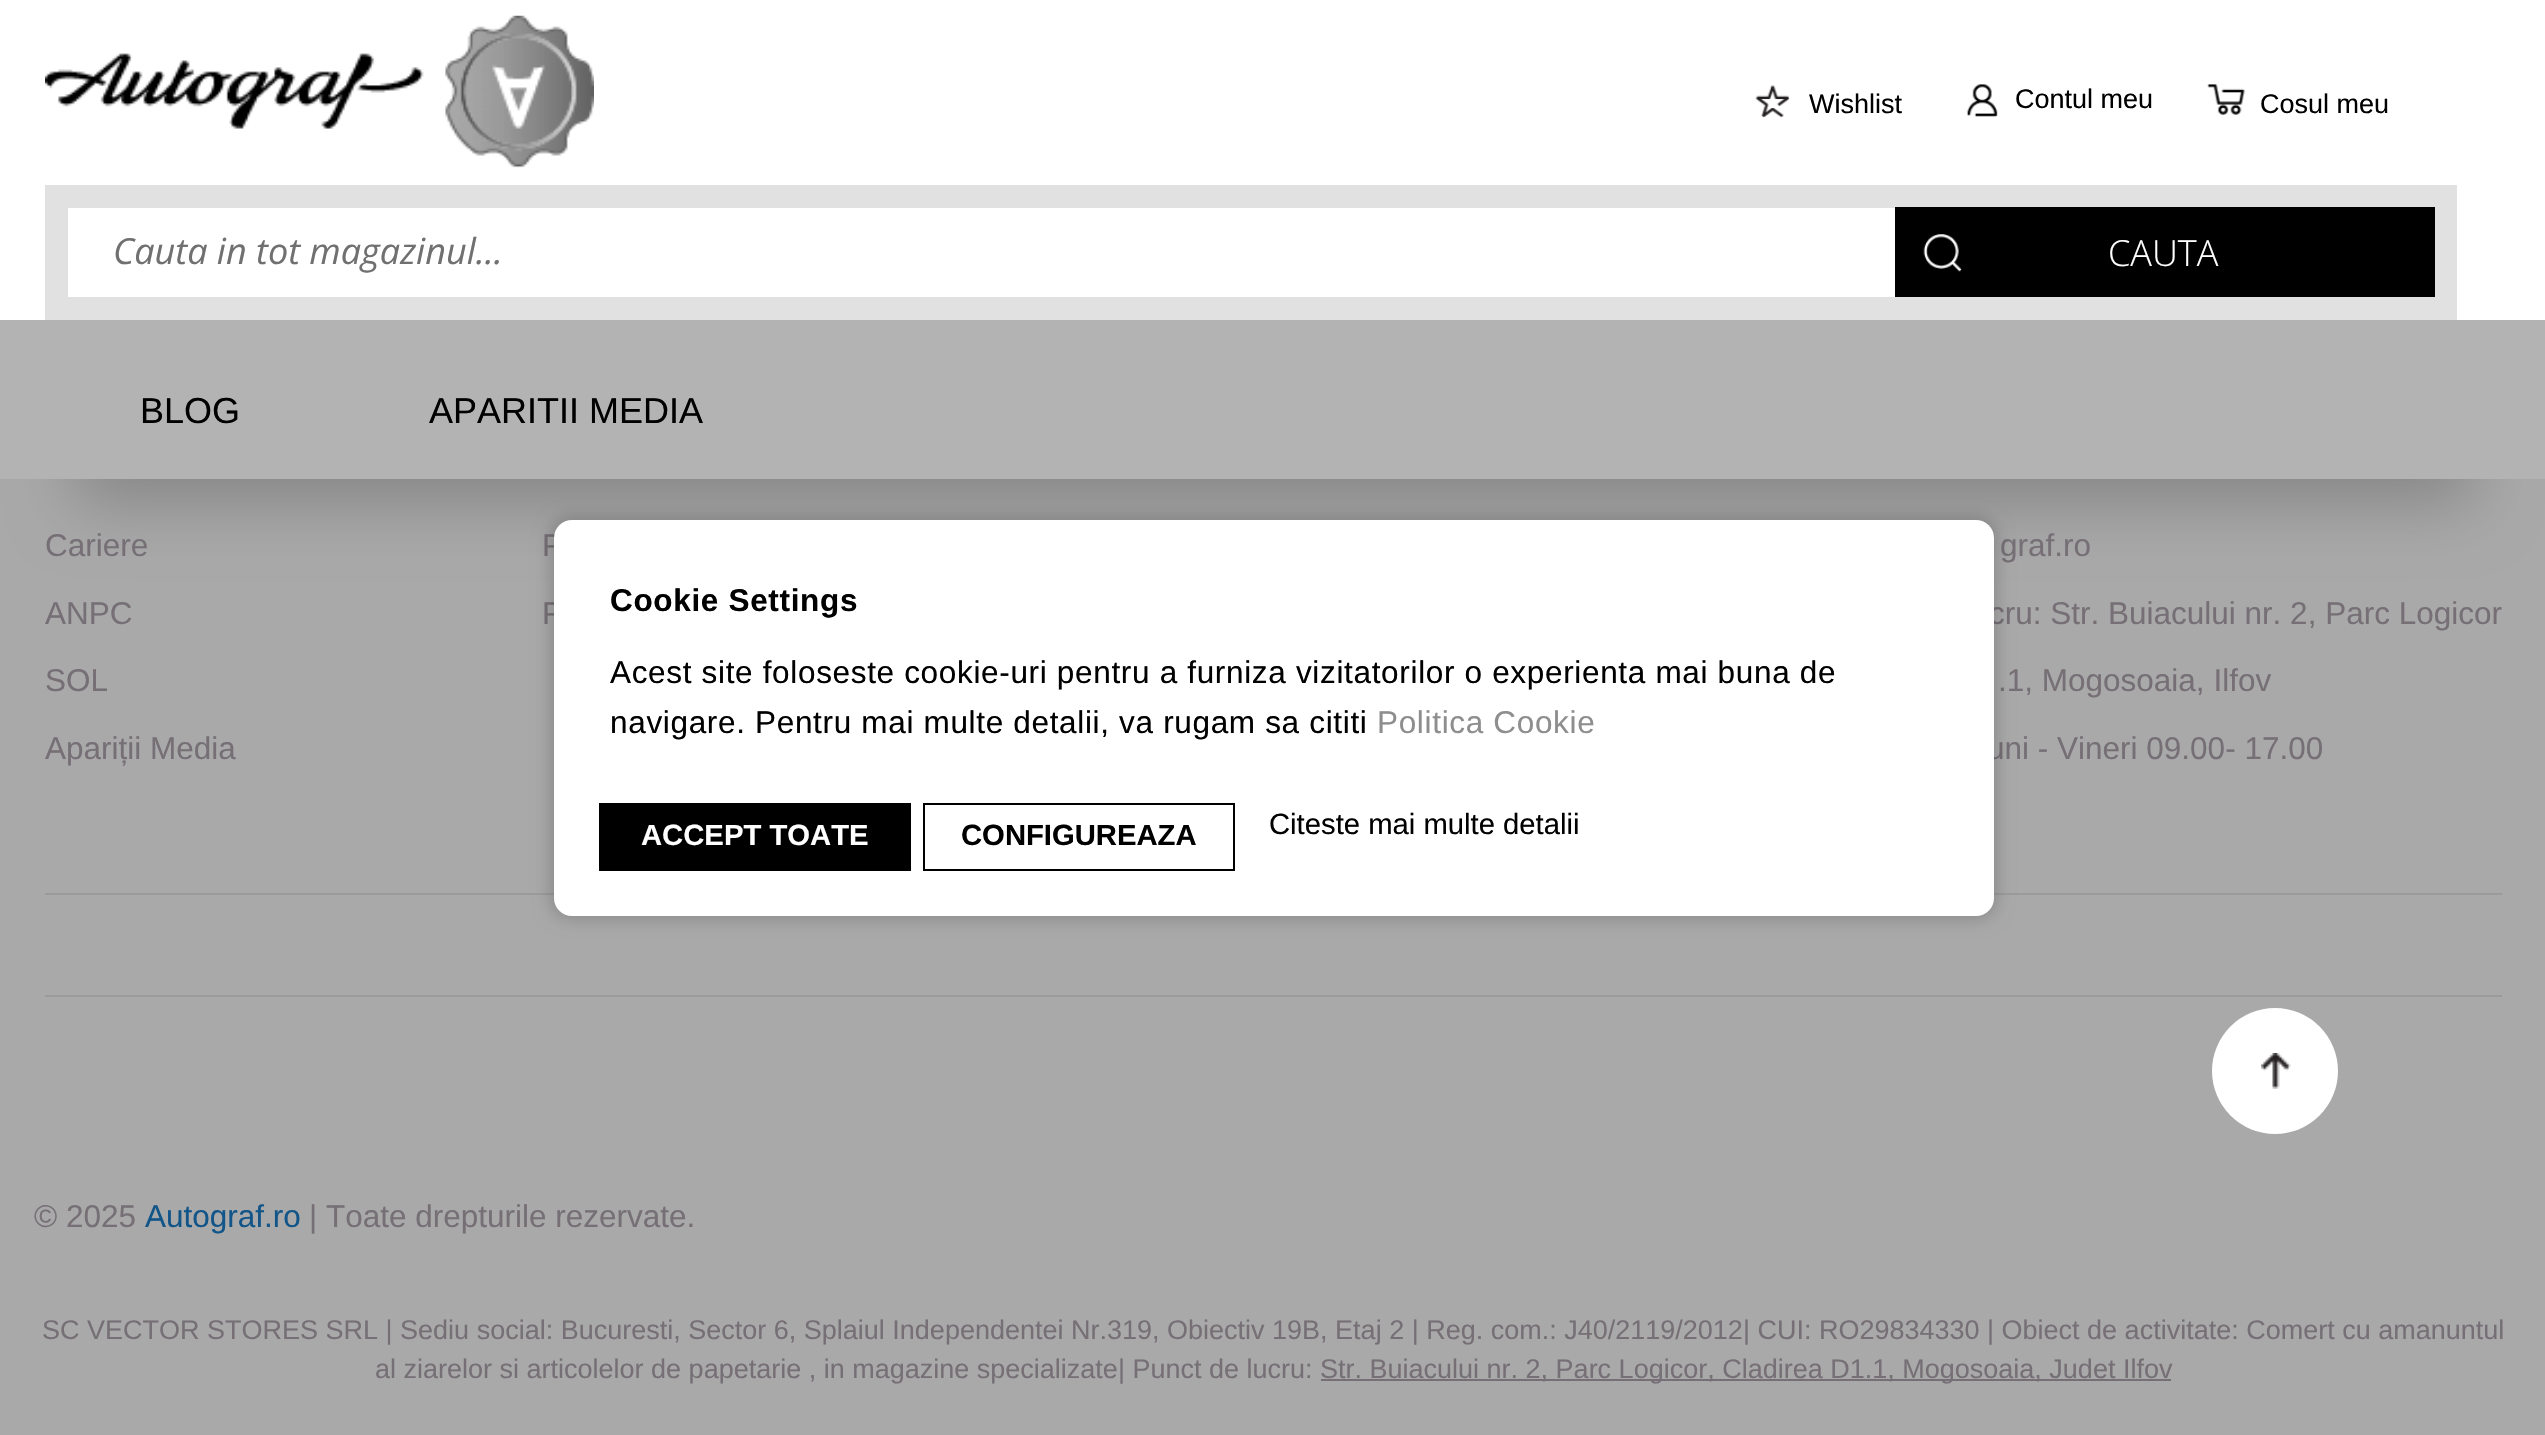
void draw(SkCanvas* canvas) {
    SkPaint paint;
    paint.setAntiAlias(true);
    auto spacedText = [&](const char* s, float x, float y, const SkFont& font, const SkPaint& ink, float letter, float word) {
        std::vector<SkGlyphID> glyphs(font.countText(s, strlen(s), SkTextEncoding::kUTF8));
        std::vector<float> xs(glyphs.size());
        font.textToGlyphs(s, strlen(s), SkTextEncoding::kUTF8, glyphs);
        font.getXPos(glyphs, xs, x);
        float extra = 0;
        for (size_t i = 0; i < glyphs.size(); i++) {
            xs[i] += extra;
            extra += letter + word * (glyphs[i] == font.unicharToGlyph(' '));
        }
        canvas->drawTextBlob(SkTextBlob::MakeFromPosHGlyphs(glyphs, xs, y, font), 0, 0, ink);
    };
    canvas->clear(0xFFA9A9A9);
    paint.setColor(0x33000000);
    paint.setMaskFilter(SkMaskFilter::MakeBlur(kNormal_SkBlurStyle, 32.5f));
    canvas->drawRect(SkRect::MakeXYWH(74, 360, 2399, 144), paint);
    paint.setMaskFilter(nullptr);
    paint.setColor(0xFFFFFFFF);
    canvas->drawRect(SkRect::MakeXYWH(0, 0, 2545, 320), paint);
    canvas->drawImageRect(SkImages::DeferredFromEncodedData(SkData::MakeFromFileName("img1.png")), SkRect::MakeXYWH(45, 15, 549, 153), SkSamplingOptions());
    canvas->drawImageRect(SkImages::DeferredFromEncodedData(SkData::MakeFromFileName("img2.png")), SkRect::MakeXYWH(1755, 85, 35, 33), SkSamplingOptions());
    SkFont font1(fontMgr->matchFamilyStyle("Liberation Sans", SkFontStyle::Normal()), 27);
    font1.setSubpixel(true);
    paint.setColor(0xFF000000);
    canvas->drawString("Wishlist", 1809, 113, font1, paint);
    canvas->drawImageRect(SkImages::DeferredFromEncodedData(SkData::MakeFromFileName("img3.png")), SkRect::MakeXYWH(1966, 84, 32, 33), SkSamplingOptions());
    canvas->drawString("Contul meu", 2015, 108, font1, paint);
    canvas->drawImageRect(SkImages::DeferredFromEncodedData(SkData::MakeFromFileName("img4.png")), SkRect::MakeXYWH(2207, 84, 38, 31), SkSamplingOptions());
    canvas->drawString("Cosul meu", 2260, 113, font1, paint);
    paint.setStyle(SkPaint::kStroke_Style);
    paint.setStrokeWidth(23);
    paint.setColor(0xFFE1E1E1);
    canvas->drawRect(SkRect::MakeXYWH(56.5f, 196.5f, 2389, 112), paint);
    SkFont font2(fontMgr->matchFamilyStyle("Open Sans", SkFontStyle::Italic()), 36);
    font2.setSubpixel(true);
    paint.setStyle(SkPaint::kFill_Style);
    paint.setColor(0xFF707070);
    canvas->drawString("Cauta in tot magazinul...", 113, 264, font2, paint);
    paint.setColor(0xFF000000);
    canvas->drawRect(SkRect::MakeXYWH(1895, 207, 540, 90), paint);
    canvas->drawImageRect(SkImages::DeferredFromEncodedData(SkData::MakeFromFileName("img5.png")), SkRect::MakeXYWH(1923, 234, 39, 38), SkSamplingOptions());
    SkFont font3(fontMgr->matchFamilyStyle("Open Sans", SkFontStyle(300, SkFontStyle::kNormal_Width, SkFontStyle::kUpright_Slant)), 36);
    font3.setSubpixel(true);
    paint.setColor(0xFFFFFFFF);
    canvas->drawString("CAUTA", 2108, 266, font3, paint);
    paint.setColor(0xFFB3B3B3);
    canvas->drawRect(SkRect::MakeXYWH(0, 320, 2545, 159), paint);
    SkFont font4(fontMgr->matchFamilyStyle("Liberation Sans", SkFontStyle::Normal()), 36);
    font4.setSubpixel(true);
    paint.setColor(0xFF000000);
    canvas->drawString("BLOG", 140, 423, font4, paint);
    canvas->drawString("APARITII MEDIA", 429, 423, font4, paint);
    SkFont font5(fontMgr->matchFamilyStyle("Liberation Sans", SkFontStyle::Normal()), 31.5f);
    font5.setSubpixel(true);
    paint.setColor(0xFF767076);
    canvas->drawString("Cariere", 45, 556, font5, paint);
    canvas->drawString("ANPC", 45, 624, font5, paint);
    canvas->drawString("SOL", 45, 691, font5, paint);
    canvas->drawString("Apariții Media", 45, 759, font5, paint);
    canvas->drawString("P", 542, 556, font5, paint);
    canvas->drawString("P", 542, 624, font5, paint);
    canvas->drawString("graf.ro", 2000, 556, font5, paint);
    canvas->drawString("cru: Str. Buiacului nr. 2, Parc Logicor", 1989, 624, font5, paint);
    canvas->drawString(".1, Mogosoaia, Ilfov", 1998, 691, font5, paint);
    canvas->drawString("uni - Vineri 09.00- 17.00", 1987, 759, font5, paint);
    paint.setColor(0xFF9B9B9B);
    canvas->drawRect(SkRect::MakeXYWH(45, 893, 2457, 2), paint);
    canvas->drawRect(SkRect::MakeXYWH(45, 995, 2457, 2), paint);
    paint.setColor(0xFFFFFFFF);
    canvas->drawCircle(2275, 1071, 63, paint);
    canvas->drawImageRect(SkImages::DeferredFromEncodedData(SkData::MakeFromFileName("img6.png")), SkRect::MakeXYWH(2261, 1053, 30, 36), SkSamplingOptions());
    paint.setColor(0xFF767076);
    canvas->drawString("© 2025", 34, 1227, font5, paint);
    paint.setColor(0xFF125589);
    canvas->drawString("Autograf.ro", 145, 1227, font5, paint);
    paint.setColor(0xFF767076);
    canvas->drawString("| Toate drepturile rezervate.", 309, 1227, font5, paint);
    canvas->drawString("SC VECTOR STORES SRL | Sediu social: Bucuresti, Sector 6, Splaiul Independentei Nr.319, Obiectiv 19B, Etaj 2 | Reg. com.: J40/2119/2012| CUI: RO29834330 | Obiect de activitate: Comert cu amanuntul", 42, 1339, font1, paint);
    canvas->drawString("al ziarelor si articolelor de papetarie , in magazine specializate| Punct de lucru:", 375, 1378, font1, paint);
    canvas->drawRect(SkRect::MakeXYWH(1321, 1379, 850, 2), paint);
    canvas->drawString("Str. Buiacului nr. 2, Parc Logicor, Cladirea D1.1, Mogosoaia, Judet Ilfov", 1320, 1378, font1, paint);
    paint.setColor(0x33000000);
    paint.setMaskFilter(SkMaskFilter::MakeBlur(kNormal_SkBlurStyle, 9));
    canvas->drawRoundRect(SkRect::MakeXYWH(551, 518, 1445, 400), 20, 20, paint);
    paint.setMaskFilter(nullptr);
    paint.setColor(0xFFFFFFFF);
    canvas->drawRoundRect(SkRect::MakeXYWH(554, 520, 1440, 396), 18, 18, paint);
    SkFont font6(fontMgr->matchFamilyStyle("Liberation Sans", SkFontStyle::Bold()), 31.5f);
    font6.setSubpixel(true);
    paint.setColor(0xFF000000);
    spacedText("Cookie Settings", 610, 611, font6, paint, 0.67f, 0);
    spacedText("Acest site foloseste cookie-uri pentru a furniza vizitatorilor o experienta mai buna de", 610, 683, font5, paint, 0.67f, 0);
    spacedText("navigare. Pentru mai multe detalii, va rugam sa cititi", 610, 733, font5, paint, 0.67f, 0);
    paint.setColor(0xFF8E8E8E);
    spacedText("Politica Cookie", 1377, 733, font5, paint, 0.67f, 0);
    paint.setColor(0xFF000000);
    canvas->drawRect(SkRect::MakeXYWH(599, 803, 312, 68), paint);
    SkFont font7(fontMgr->matchFamilyStyle("Liberation Sans", SkFontStyle::Bold()), 29.25f);
    font7.setSubpixel(true);
    paint.setColor(0xFFFFFFFF);
    canvas->drawString("ACCEPT TOATE", 641, 845, font7, paint);
    paint.setStyle(SkPaint::kStroke_Style);
    paint.setStrokeWidth(2);
    paint.setColor(0xFF000000);
    canvas->drawRect(SkRect::MakeXYWH(924, 804, 310, 66), paint);
    paint.setStyle(SkPaint::kFill_Style);
    canvas->drawString("CONFIGUREAZA", 961, 845, font7, paint);
    SkFont font8(fontMgr->matchFamilyStyle("Liberation Sans", SkFontStyle::Normal()), 29.25f);
    font8.setSubpixel(true);
    canvas->drawString("Citeste mai multe detalii", 1269, 834, font8, paint);
}
